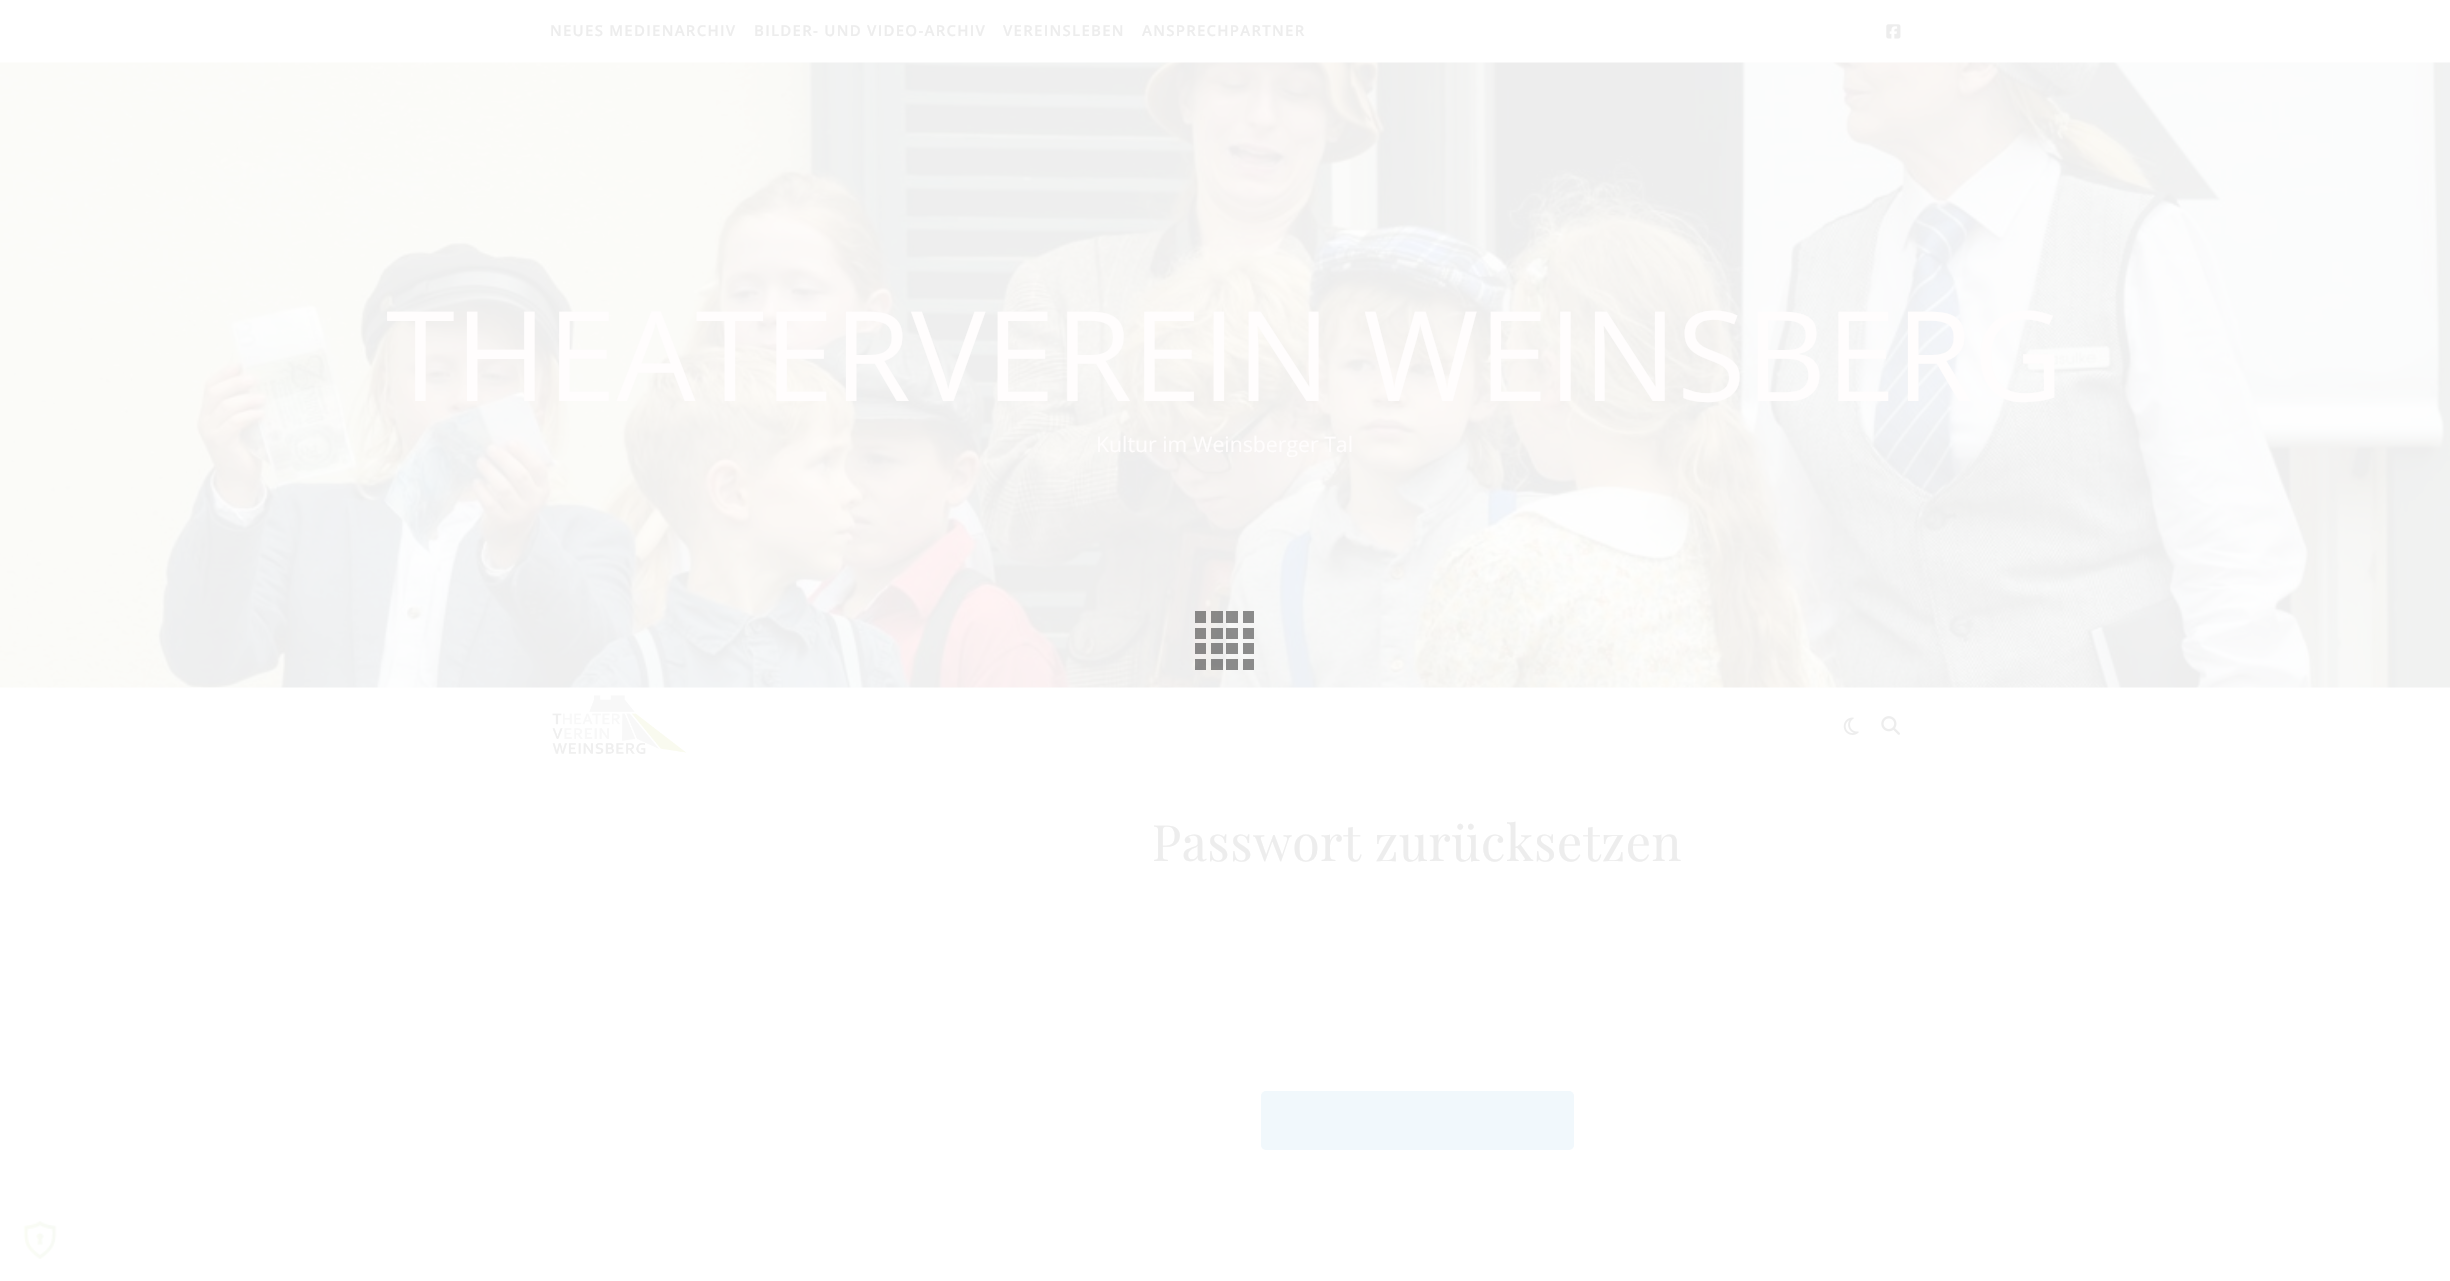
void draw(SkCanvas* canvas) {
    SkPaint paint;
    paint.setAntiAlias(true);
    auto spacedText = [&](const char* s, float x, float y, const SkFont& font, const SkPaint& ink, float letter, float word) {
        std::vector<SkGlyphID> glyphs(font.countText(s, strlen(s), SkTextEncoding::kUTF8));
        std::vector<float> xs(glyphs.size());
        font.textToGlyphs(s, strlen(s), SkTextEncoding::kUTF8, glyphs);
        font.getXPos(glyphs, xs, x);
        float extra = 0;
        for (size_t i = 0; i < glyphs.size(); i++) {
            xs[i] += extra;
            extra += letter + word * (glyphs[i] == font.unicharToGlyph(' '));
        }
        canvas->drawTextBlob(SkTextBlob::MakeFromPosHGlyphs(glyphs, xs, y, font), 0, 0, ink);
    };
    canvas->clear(0xFFFFFFFF);
    SkFont font1(fontMgr->matchFamilyStyle("Open Sans", SkFontStyle(600, SkFontStyle::kNormal_Width, SkFontStyle::kUpright_Slant)), 15);
    font1.setSubpixel(true);
    paint.setColor(0xFFEDEDED);
    spacedText("NEUES MEDIENARCHIV", 550, 36, font1, paint, 1.25f, 0);
    spacedText("BILDER- UND VIDEO-ARCHIV", 754, 36, font1, paint, 1.25f, 0);
    spacedText("VEREINSLEBEN", 1003, 36, font1, paint, 1.25f, 0);
    spacedText("ANSPRECHPARTNER", 1142, 36, font1, paint, 1.25f, 0);
    canvas->drawImageRect(SkImages::DeferredFromEncodedData(SkData::MakeFromFileName("img1.png")), SkRect::MakeXYWH(1886, 24, 15, 15), SkSamplingOptions());
    canvas->drawImageRect(SkImages::DeferredFromEncodedData(SkData::MakeFromFileName("img2.png")), SkRect::MakeXYWH(0, 62, 2450, 626), SkSamplingOptions());
    SkFont font2(fontMgr->matchFamilyStyle("Open Sans", SkFontStyle::Normal()), 125);
    font2.setSubpixel(true);
    paint.setColor(0xFFFFFDFD);
    canvas->drawString("THEATERVEREIN WEINSBERG", 386, 401, font2, paint);
    SkFont font3(fontMgr->matchFamilyStyle("Open Sans", SkFontStyle::Normal()), 21.25f);
    font3.setSubpixel(true);
    canvas->drawString("Kultur im Weinsberger Tal", 1096, 452, font3, paint);
    canvas->drawImageRect(SkImages::DeferredFromEncodedData(SkData::MakeFromFileName("img3.png")), SkRect::MakeXYWH(552, 695, 135, 60), SkSamplingOptions());
    canvas->drawImageRect(SkImages::DeferredFromEncodedData(SkData::MakeFromFileName("img4.png")), SkRect::MakeXYWH(1843, 717, 16, 18), SkSamplingOptions());
    canvas->drawImageRect(SkImages::DeferredFromEncodedData(SkData::MakeFromFileName("img5.png")), SkRect::MakeXYWH(1881, 716, 19, 19), SkSamplingOptions());
    SkFont font4(fontMgr->matchFamilyStyle("Playfair Display", SkFontStyle::Normal()), 50);
    font4.setSubpixel(true);
    paint.setColor(0xFFEDEDED);
    spacedText("Passwort zurücksetzen", 1152, 861, font4, paint, 0.6f, 0);
    paint.setColor(0xFFF1F8FC);
    canvas->drawRoundRect(SkRect::MakeXYWH(1261, 1091, 313, 59), 5, 5, paint);
    paint.setColor(0x8C333333);
    canvas->drawRect(SkRect::MakeXYWH(1195, 611, 11, 12), paint);
    canvas->drawRect(SkRect::MakeXYWH(1211, 611, 12, 12), paint);
    canvas->drawRect(SkRect::MakeXYWH(1226, 611, 12, 12), paint);
    canvas->drawRect(SkRect::MakeXYWH(1243, 611, 11, 12), paint);
    canvas->drawRect(SkRect::MakeXYWH(1195, 628, 11, 11), paint);
    canvas->drawRect(SkRect::MakeXYWH(1211, 628, 12, 11), paint);
    canvas->drawRect(SkRect::MakeXYWH(1226, 628, 12, 11), paint);
    canvas->drawRect(SkRect::MakeXYWH(1243, 628, 11, 11), paint);
    paint.setColor(0xFF898787);
    canvas->drawRect(SkRect::MakeXYWH(1195, 643, 11, 11), paint);
    paint.setColor(0x8C333333);
    canvas->drawRect(SkRect::MakeXYWH(1211, 643, 12, 11), paint);
    canvas->drawRect(SkRect::MakeXYWH(1226, 643, 12, 11), paint);
    canvas->drawRect(SkRect::MakeXYWH(1243, 643, 11, 11), paint);
    canvas->drawRect(SkRect::MakeXYWH(1195, 659, 11, 11), paint);
    canvas->drawRect(SkRect::MakeXYWH(1211, 659, 12, 11), paint);
    canvas->drawRect(SkRect::MakeXYWH(1226, 659, 12, 11), paint);
    canvas->drawRect(SkRect::MakeXYWH(1243, 659, 11, 11), paint);
    canvas->drawImageRect(SkImages::DeferredFromEncodedData(SkData::MakeFromFileName("img6.png")), SkRect::MakeXYWH(23, 1221, 34, 38), SkSamplingOptions());
}
